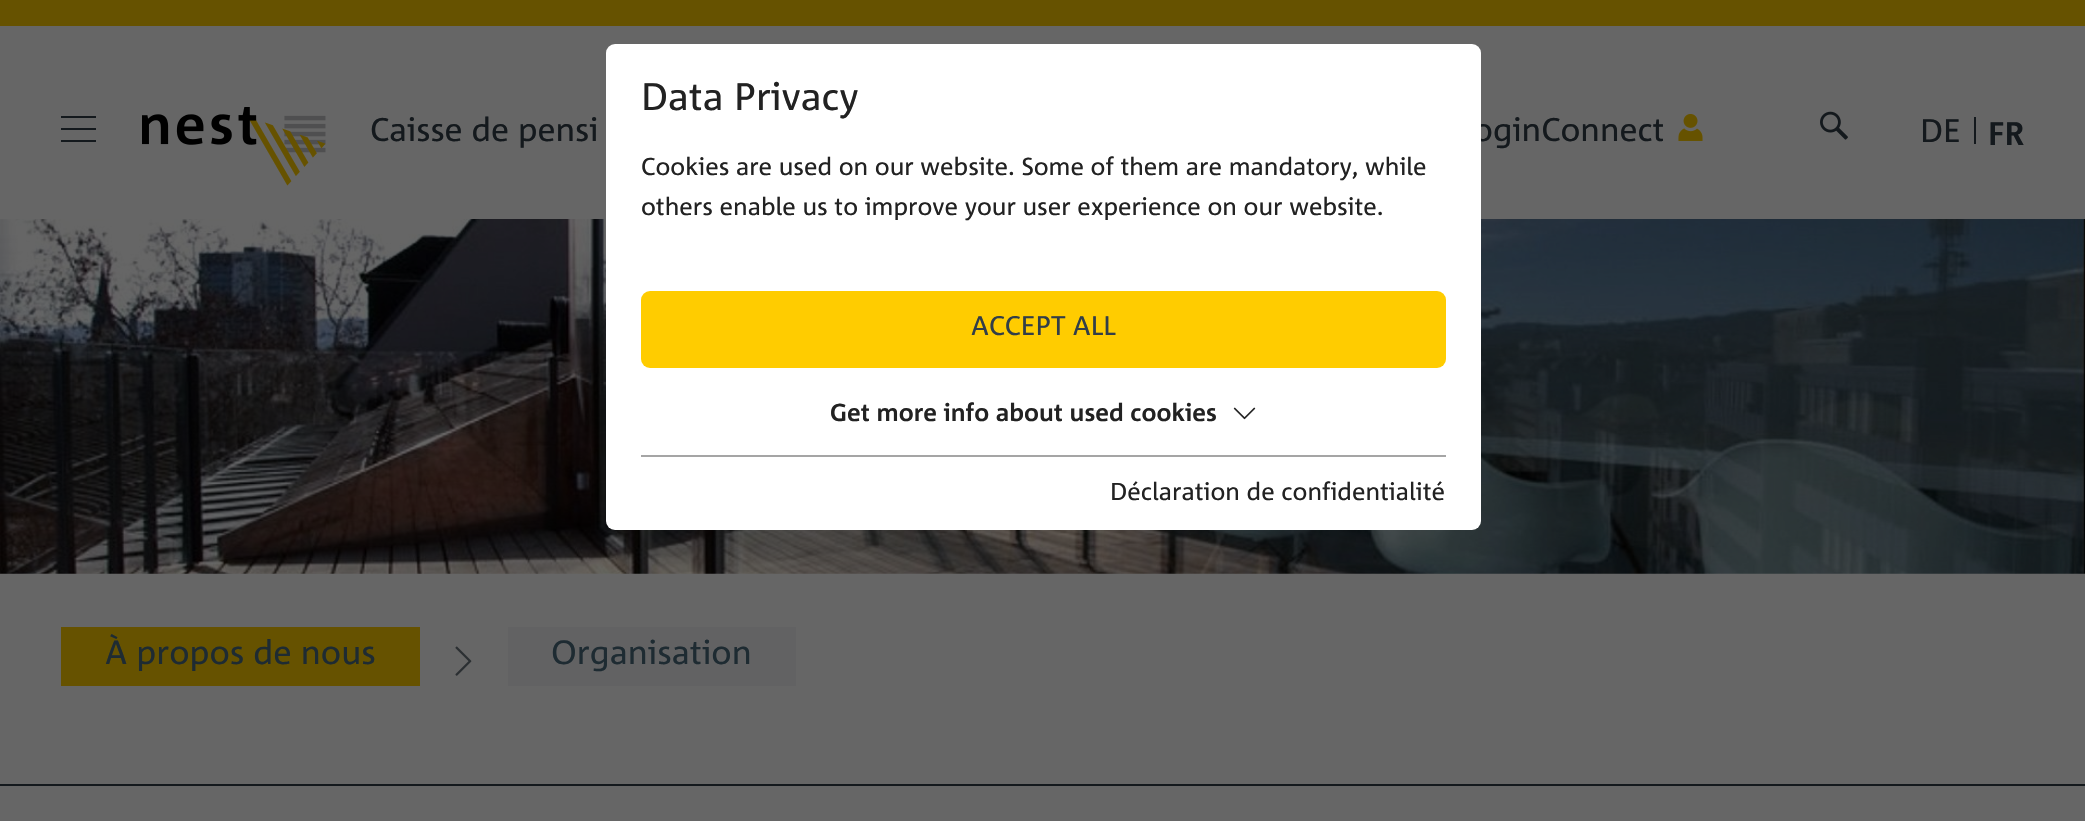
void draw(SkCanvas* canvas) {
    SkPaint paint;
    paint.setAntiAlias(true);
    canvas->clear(0xFF666666);
    SkFont font1(fontMgr->matchFamilyStyle("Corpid", SkFontStyle::Normal()), 32.75f);
    font1.setSubpixel(true);
    paint.setColor(0xFF14191D);
    canvas->drawString("oginConnect", 1473, 141, font1, paint);
    canvas->drawImageRect(SkImages::DeferredFromEncodedData(SkData::MakeFromFileName("img5.png")), SkRect::MakeXYWH(0, 219, 2085, 355), SkSamplingOptions());
    paint.setColor(0xFFFFFFFF);
    canvas->drawRoundRect(SkRect::MakeXYWH(606, 44, 875, 486), 9, 9, paint);
    SkFont font2(fontMgr->matchFamilyStyle("Corpid", SkFontStyle::Normal()), 38.5f);
    font2.setSubpixel(true);
    paint.setColor(0xFF222222);
    canvas->drawString("Data Privacy", 641, 110, font2, paint);
    SkFont font3(fontMgr->matchFamilyStyle("Corpid", SkFontStyle::Normal()), 24.5f);
    font3.setSubpixel(true);
    canvas->drawString("Cookies are used on our website. Some of them are mandatory, while", 641, 175, font3, paint);
    canvas->drawString("others enable us to improve your user experience on our website.", 641, 215, font3, paint);
    paint.setColor(0xFFFFCC00);
    canvas->drawRoundRect(SkRect::MakeXYWH(641, 291, 805, 77), 9, 9, paint);
    SkFont font4(fontMgr->matchFamilyStyle("Corpid", SkFontStyle::Normal()), 27);
    font4.setSubpixel(true);
    paint.setColor(0xFF323E48);
    canvas->drawString("ACCEPT ALL", 971, 335, font4, paint);
    SkFont font5(fontMgr->matchFamilyStyle("Corpid", SkFontStyle::Bold()), 24.5f);
    font5.setSubpixel(true);
    paint.setColor(0xFF222222);
    canvas->drawString("Get more info about used cookies", 830, 421, font5, paint);
    canvas->drawImageRect(SkImages::DeferredFromEncodedData(SkData::MakeFromFileName("img1.png")), SkRect::MakeXYWH(1233, 407, 23, 13), SkSamplingOptions());
    paint.setColor(0xFFA5A5A5);
    canvas->drawRect(SkRect::MakeXYWH(641, 455, 805, 2), paint);
    paint.setColor(0xFF222222);
    canvas->drawString("Déclaration de confidentialité", 1110, 500, font3, paint);
    paint.setColor(0xFF665200);
    canvas->drawRect(SkRect::MakeXYWH(0, 0, 2085, 26), paint);
    paint.setColor(0xFF14191D);
    canvas->drawRect(SkRect::MakeXYWH(61, 116, 35, 2), paint);
    canvas->drawRect(SkRect::MakeXYWH(61, 128, 35, 2), paint);
    canvas->drawRect(SkRect::MakeXYWH(61, 140, 35, 2), paint);
    canvas->drawImageRect(SkImages::DeferredFromEncodedData(SkData::MakeFromFileName("img2.png")), SkRect::MakeXYWH(142, 107, 184, 79), SkSamplingOptions());
    canvas->drawString("Caisse de pensi", 370, 141, font1, paint);
    canvas->drawImageRect(SkImages::DeferredFromEncodedData(SkData::MakeFromFileName("img3.png")), SkRect::MakeXYWH(1678, 114, 25, 27), SkSamplingOptions());
    canvas->drawImageRect(SkImages::DeferredFromEncodedData(SkData::MakeFromFileName("img4.png")), SkRect::MakeXYWH(1820, 111, 28, 29), SkSamplingOptions());
    canvas->drawString("DE", 1920, 142, font1, paint);
    canvas->drawRect(SkRect::MakeXYWH(1974, 117, 2, 27), paint);
    SkFont font6(fontMgr->matchFamilyStyle("Corpid", SkFontStyle::Bold()), 32.75f);
    font6.setSubpixel(true);
    canvas->drawString("FR", 1988, 145, font6, paint);
    paint.setColor(0xFF665200);
    canvas->drawRect(SkRect::MakeXYWH(61, 627, 359, 59), paint);
    SkFont font7(fontMgr->matchFamilyStyle("Corpid", SkFontStyle::Normal()), 33.5f);
    font7.setSubpixel(true);
    paint.setColor(0xFF1E2B32);
    canvas->drawString("À propos de nous", 105, 664, font7, paint);
    paint.setColor(0xFF626263);
    canvas->drawRect(SkRect::MakeXYWH(508, 627, 288, 59), paint);
    canvas->drawImageRect(SkImages::DeferredFromEncodedData(SkData::MakeFromFileName("img6.png")), SkRect::MakeXYWH(455, 646, 17, 30), SkSamplingOptions());
    paint.setColor(0xFF1E2B32);
    canvas->drawString("Organisation", 551, 664, font7, paint);
    paint.setColor(0xFF14191D);
    canvas->drawRect(SkRect::MakeXYWH(0, 784, 2085, 2), paint);
}
